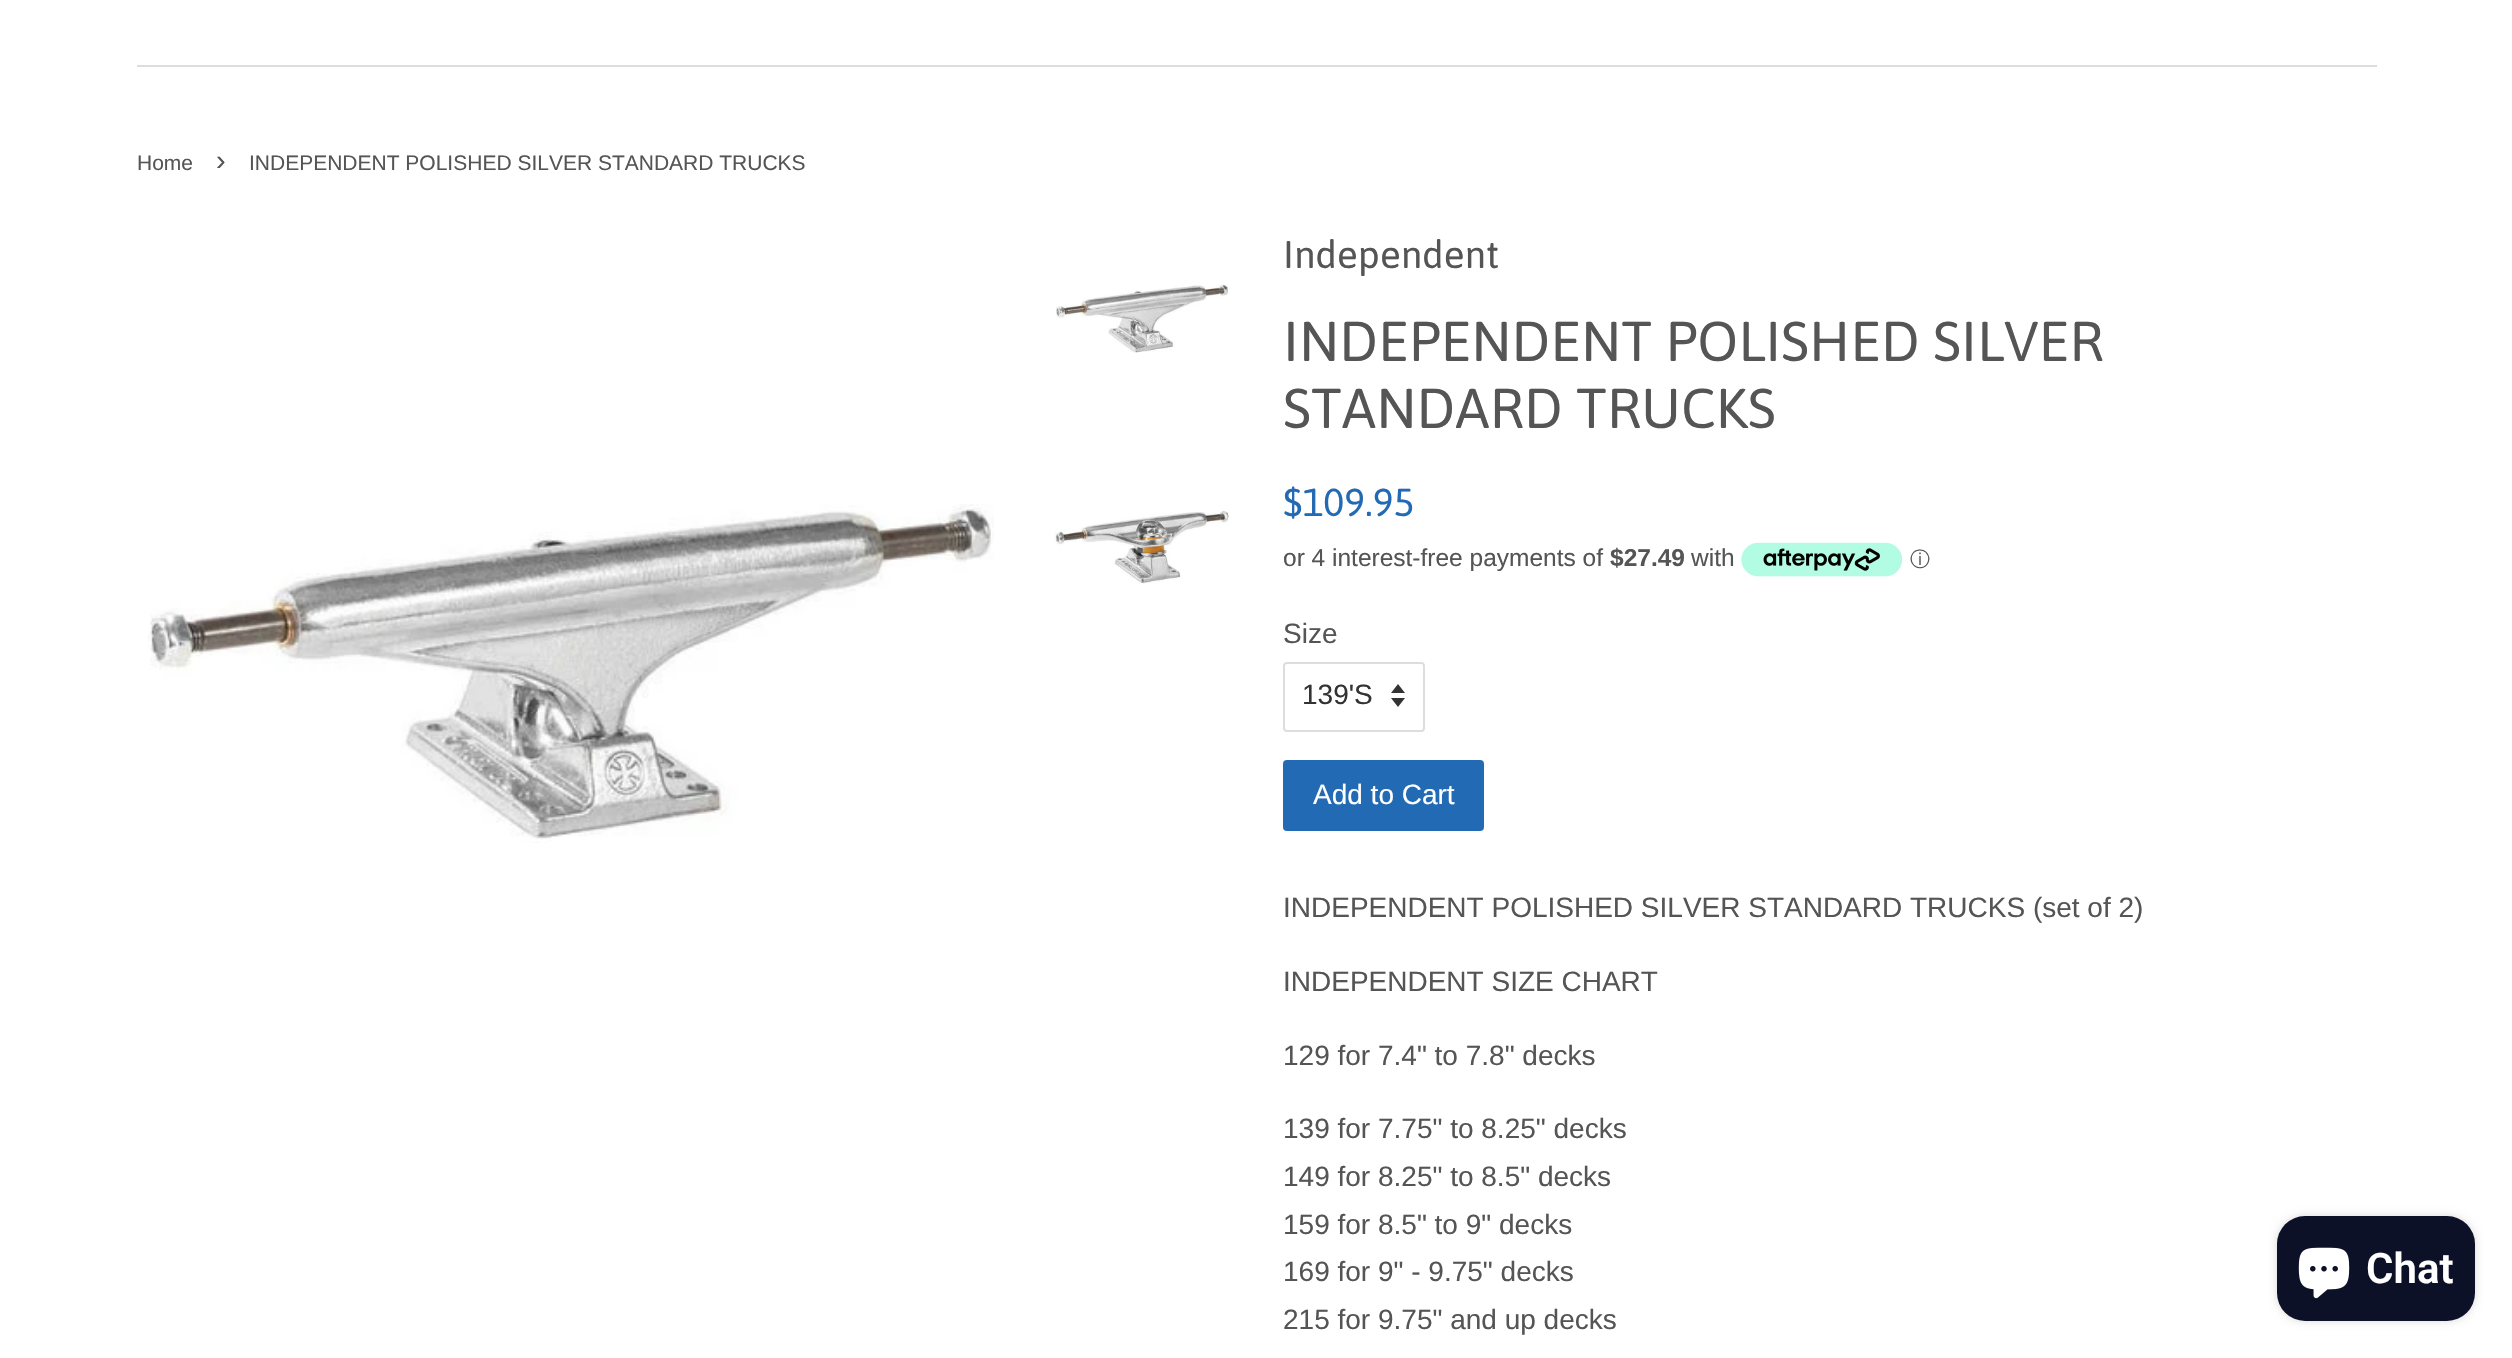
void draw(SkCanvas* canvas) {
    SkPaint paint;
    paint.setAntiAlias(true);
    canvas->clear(0xFFFFFFFF);
    paint.setColor(0xFFDDDDDD);
    canvas->drawRect(SkRect::MakeXYWH(137, 65, 2240, 2), paint);
    SkFont font1(fontMgr->matchFamilyStyle("Liberation Sans", SkFontStyle::Normal()), 21);
    font1.setSubpixel(true);
    paint.setColor(0xFF555555);
    canvas->drawString("Home", 137, 170, font1, paint);
    SkFont font2(fontMgr->matchFamilyStyle("Liberation Sans", SkFontStyle::Normal()), 29);
    font2.setSubpixel(true);
    canvas->drawString("›", 216, 170, font2, paint);
    canvas->drawString("INDEPENDENT POLISHED SILVER STANDARD TRUCKS", 249, 170, font1, paint);
    canvas->drawImageRect(SkImages::DeferredFromEncodedData(SkData::MakeFromFileName("img1.png")), SkRect::MakeXYWH(1056, 284, 173, 69), SkSamplingOptions());
    canvas->drawImageRect(SkImages::DeferredFromEncodedData(SkData::MakeFromFileName("img2.png")), SkRect::MakeXYWH(1054, 510, 175, 74), SkSamplingOptions());
    canvas->drawImageRect(SkImages::DeferredFromEncodedData(SkData::MakeFromFileName("img3.png")), SkRect::MakeXYWH(147, 504, 847, 339), SkSamplingOptions());
    SkFont font3(fontMgr->matchFamilyStyle("Asap", SkFontStyle::Normal()), 38.5f);
    font3.setSubpixel(true);
    canvas->drawString("Independent", 1283, 268, font3, paint);
    SkFont font4(fontMgr->matchFamilyStyle("Asap", SkFontStyle::Normal()), 56);
    font4.setSubpixel(true);
    canvas->drawString("INDEPENDENT POLISHED SILVER", 1283, 361, font4, paint);
    canvas->drawString("STANDARD TRUCKS", 1283, 428, font4, paint);
    SkFont font5(fontMgr->matchFamilyStyle("Asap", SkFontStyle::Normal()), 39);
    font5.setSubpixel(true);
    paint.setColor(0xFF226AB4);
    canvas->drawString("$109.95", 1283, 516, font5, paint);
    SkFont font6(fontMgr->matchFamilyStyle("Liberation Sans", SkFontStyle::Normal()), 24.5f);
    font6.setSubpixel(true);
    paint.setColor(0xFF555555);
    canvas->drawString("or 4 interest-free payments of", 1283, 566, font6, paint);
    SkFont font7(fontMgr->matchFamilyStyle("Liberation Sans", SkFontStyle::Bold()), 24.5f);
    font7.setSubpixel(true);
    canvas->drawString("$27.49", 1610, 566, font7, paint);
    canvas->drawString("with", 1691, 566, font6, paint);
    canvas->drawImageRect(SkImages::DeferredFromEncodedData(SkData::MakeFromFileName("img4.png")), SkRect::MakeXYWH(1741, 542, 161, 35), SkSamplingOptions());
    SkFont font8(fontMgr->matchFamilyStyle("WenQuanYi Zen Hei", SkFontStyle(500, SkFontStyle::kNormal_Width, SkFontStyle::kUpright_Slant)), 20);
    font8.setSubpixel(true);
    canvas->drawString("ⓘ", 1910, 566, font8, paint);
    SkFont font9(fontMgr->matchFamilyStyle("Liberation Sans", SkFontStyle::Normal()), 28);
    font9.setSubpixel(true);
    canvas->drawString("Size", 1283, 643, font9, paint);
    paint.setColor(0xFF333333);
    canvas->drawPath(SkPathBuilder().moveTo(1391, 698).lineTo(1398, 707).lineTo(1405, 698).close().moveTo(1398, 684).lineTo(1391, 693).lineTo(1405, 693).close().detach(), paint);
    paint.setStyle(SkPaint::kStroke_Style);
    paint.setStrokeWidth(2);
    paint.setColor(0xFFDDDDDD);
    canvas->drawRoundRect(SkRect::MakeXYWH(1284, 663, 140, 68), 3, 3, paint);
    paint.setStyle(SkPaint::kFill_Style);
    paint.setColor(0xFF333333);
    canvas->drawString("139'S", 1302, 704, font9, paint);
    paint.setColor(0xFF226AB4);
    canvas->drawRoundRect(SkRect::MakeXYWH(1283, 760, 201, 71), 4, 4, paint);
    paint.setColor(0xFFFFFFFF);
    canvas->drawString("Add to Cart", 1313, 804, font9, paint);
    paint.setColor(0xFF555555);
    canvas->drawString("INDEPENDENT POLISHED SILVER STANDARD TRUCKS (set of 2)", 1283, 917, font9, paint);
    canvas->drawString("INDEPENDENT SIZE CHART", 1283, 991, font9, paint);
    canvas->drawString("129 for 7.4\" to 7.8\" decks", 1283, 1065, font9, paint);
    canvas->drawString("139 for 7.75\" to 8.25\" decks", 1283, 1138, font9, paint);
    canvas->drawString("149 for 8.25\" to 8.5\" decks", 1283, 1186, font9, paint);
    canvas->drawString("159 for 8.5\" to 9\" decks", 1283, 1234, font9, paint);
    canvas->drawString("169 for 9\" - 9.75\" decks", 1283, 1281, font9, paint);
    canvas->drawString("215 for 9.75\" and up decks", 1283, 1329, font9, paint);
    paint.setColor(0x26000000);
    paint.setMaskFilter(SkMaskFilter::MakeBlur(kNormal_SkBlurStyle, 4.5f));
    canvas->drawRoundRect(SkRect::MakeXYWH(2277, 1216, 198, 105), 28, 28, paint);
    paint.setMaskFilter(nullptr);
    paint.setColor(0xFF0D1128);
    canvas->drawRoundRect(SkRect::MakeXYWH(2277, 1216, 198, 105), 28, 28, paint);
    canvas->drawImageRect(SkImages::DeferredFromEncodedData(SkData::MakeFromFileName("img5.png")), SkRect::MakeXYWH(2298, 1247, 52, 52), SkSamplingOptions());
    SkFont font10(fontMgr->matchFamilyStyle("Roboto", SkFontStyle(600, SkFontStyle::kNormal_Width, SkFontStyle::kUpright_Slant)), 42);
    font10.setSubpixel(true);
    paint.setColor(0xFFFFFFFF);
    canvas->drawString("Chat", 2366, 1283, font10, paint);
}
